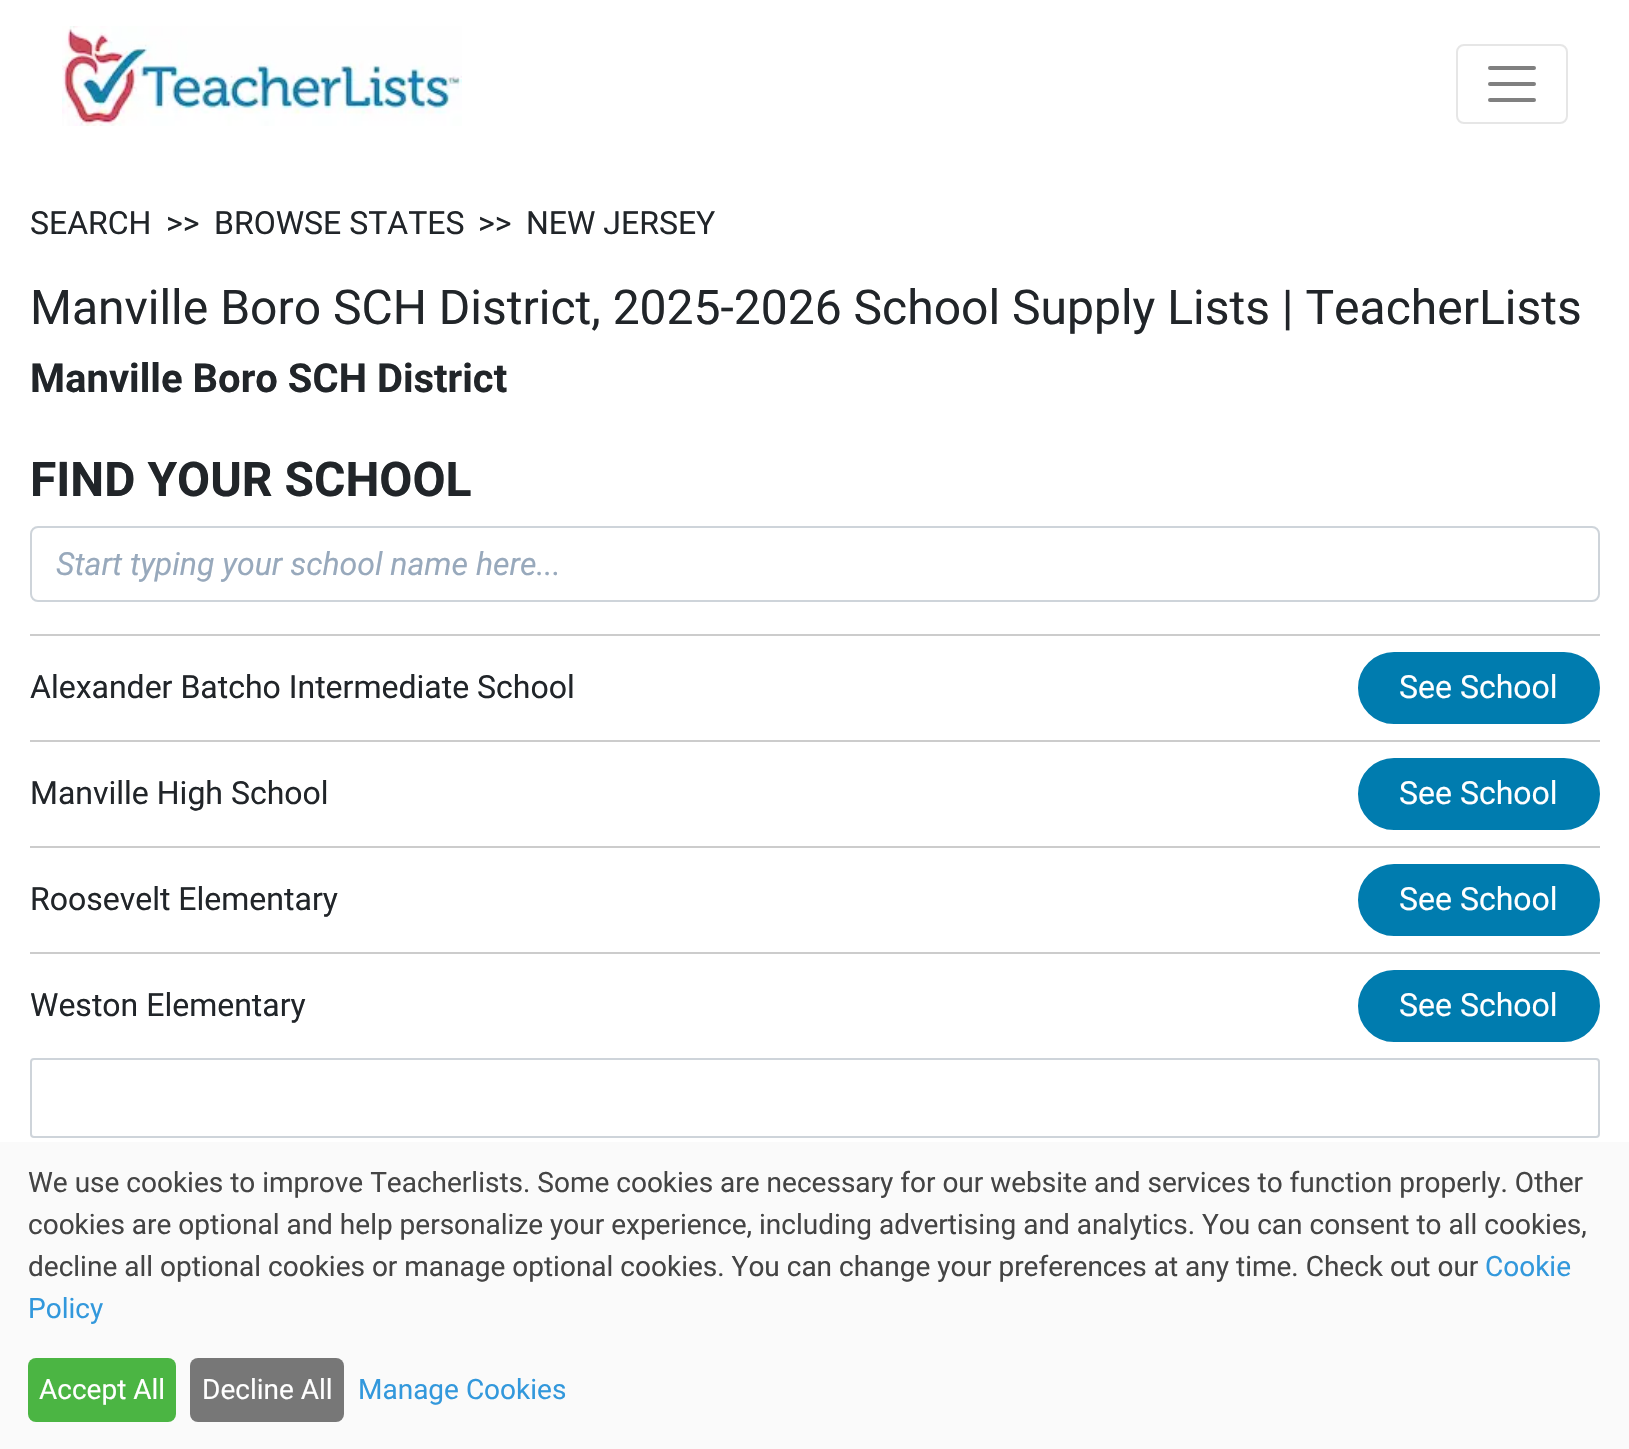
void draw(SkCanvas* canvas) {
    SkPaint paint;
    paint.setAntiAlias(true);
    canvas->clear(0xFFFFFFFF);
    canvas->drawImageRect(SkImages::DeferredFromEncodedData(SkData::MakeFromFileName("img1.png")), SkRect::MakeXYWH(62, 26, 400, 100), SkSamplingOptions());
    paint.setStyle(SkPaint::kStroke_Style);
    paint.setStrokeWidth(2);
    paint.setColor(0xFFE6E6E6);
    canvas->drawRoundRect(SkRect::MakeXYWH(1457, 45, 110, 78), 7, 7, paint);
    paint.setStrokeWidth(4);
    paint.setStrokeCap(SkPaint::kRound_Cap);
    paint.setColor(0xFF808080);
    canvas->drawPath(SkPathBuilder().moveTo(1490, 68).lineTo(1534, 68).moveTo(1490, 84).lineTo(1534, 84).moveTo(1490, 100).lineTo(1534, 100).detach(), paint);
    SkFont font1(fontMgr->matchFamilyStyle("Roboto", SkFontStyle::Normal()), 32);
    font1.setSubpixel(true);
    paint.setStyle(SkPaint::kFill_Style);
    paint.setColor(0xFF212529);
    canvas->drawString("SEARCH", 30, 234, font1, paint);
    canvas->drawString(">>", 166, 234, font1, paint);
    canvas->drawString("BROWSE STATES", 214, 234, font1, paint);
    canvas->drawString(">>", 478, 234, font1, paint);
    canvas->drawString("NEW JERSEY", 526, 234, font1, paint);
    SkFont font2(fontMgr->matchFamilyStyle("Roboto", SkFontStyle::Normal()), 48);
    font2.setSubpixel(true);
    canvas->drawString("Manville Boro SCH District, 2025-2026 School Supply Lists | TeacherLists", 30, 324, font2, paint);
    SkFont font3(fontMgr->matchFamilyStyle("Roboto", SkFontStyle::Bold()), 40);
    font3.setSubpixel(true);
    canvas->drawString("Manville Boro SCH District", 30, 392, font3, paint);
    SkFont font4(fontMgr->matchFamilyStyle("Roboto", SkFontStyle::Bold()), 48);
    font4.setSubpixel(true);
    canvas->drawString("FIND YOUR SCHOOL", 30, 496, font4, paint);
    paint.setStyle(SkPaint::kStroke_Style);
    paint.setStrokeWidth(2);
    paint.setStrokeCap(SkPaint::kButt_Cap);
    paint.setColor(0xFFCED4DA);
    canvas->drawRoundRect(SkRect::MakeXYWH(31, 527, 1568, 74), 7, 7, paint);
    SkFont font5(fontMgr->matchFamilyStyle("Roboto", SkFontStyle::Italic()), 32);
    font5.setSubpixel(true);
    paint.setStyle(SkPaint::kFill_Style);
    paint.setColor(0xFF98A9BC);
    canvas->drawString("Start typing your school name here...", 56, 575, font5, paint);
    paint.setColor(0xFFCCCCCC);
    canvas->drawRect(SkRect::MakeXYWH(30, 634, 1570, 2), paint);
    paint.setColor(0xFF212529);
    canvas->drawString("Alexander Batcho Intermediate School", 30, 698, font1, paint);
    paint.setColor(0xFF007CAF);
    canvas->drawRoundRect(SkRect::MakeXYWH(1359, 653, 240, 70), 35, 35, paint);
    paint.setStyle(SkPaint::kStroke_Style);
    canvas->drawRoundRect(SkRect::MakeXYWH(1359, 653, 240, 70), 35, 35, paint);
    paint.setStyle(SkPaint::kFill_Style);
    paint.setColor(0xFFFFFFFF);
    canvas->drawString("See School", 1399, 698, font1, paint);
    paint.setColor(0xFFCCCCCC);
    canvas->drawRect(SkRect::MakeXYWH(30, 740, 1570, 2), paint);
    paint.setColor(0xFF212529);
    canvas->drawString("Manville High School", 30, 804, font1, paint);
    paint.setColor(0xFF007CAF);
    canvas->drawRoundRect(SkRect::MakeXYWH(1359, 759, 240, 70), 35, 35, paint);
    paint.setStyle(SkPaint::kStroke_Style);
    canvas->drawRoundRect(SkRect::MakeXYWH(1359, 759, 240, 70), 35, 35, paint);
    paint.setStyle(SkPaint::kFill_Style);
    paint.setColor(0xFFFFFFFF);
    canvas->drawString("See School", 1399, 804, font1, paint);
    paint.setColor(0xFFCCCCCC);
    canvas->drawRect(SkRect::MakeXYWH(30, 846, 1570, 2), paint);
    paint.setColor(0xFF212529);
    canvas->drawString("Roosevelt Elementary", 30, 910, font1, paint);
    paint.setColor(0xFF007CAF);
    canvas->drawRoundRect(SkRect::MakeXYWH(1359, 865, 240, 70), 35, 35, paint);
    paint.setStyle(SkPaint::kStroke_Style);
    canvas->drawRoundRect(SkRect::MakeXYWH(1359, 865, 240, 70), 35, 35, paint);
    paint.setStyle(SkPaint::kFill_Style);
    paint.setColor(0xFFFFFFFF);
    canvas->drawString("See School", 1399, 910, font1, paint);
    paint.setColor(0xFFCCCCCC);
    canvas->drawRect(SkRect::MakeXYWH(30, 952, 1570, 2), paint);
    paint.setColor(0xFF212529);
    canvas->drawString("Weston Elementary", 30, 1016, font1, paint);
    paint.setColor(0xFF007CAF);
    canvas->drawRoundRect(SkRect::MakeXYWH(1359, 971, 240, 70), 35, 35, paint);
    paint.setStyle(SkPaint::kStroke_Style);
    canvas->drawRoundRect(SkRect::MakeXYWH(1359, 971, 240, 70), 35, 35, paint);
    paint.setStyle(SkPaint::kFill_Style);
    paint.setColor(0xFFFFFFFF);
    canvas->drawString("See School", 1399, 1016, font1, paint);
    paint.setStyle(SkPaint::kStroke_Style);
    paint.setColor(0xFFCED4DA);
    canvas->drawRoundRect(SkRect::MakeXYWH(31, 1059, 1568, 78), 3, 3, paint);
    paint.setStyle(SkPaint::kFill_Style);
    paint.setColor(0xFFFAFAFA);
    canvas->drawRect(SkRect::MakeXYWH(0, 1142, 1629, 307), paint);
    SkFont font6(fontMgr->matchFamilyStyle("Roboto", SkFontStyle::Normal()), 28);
    font6.setSubpixel(true);
    paint.setColor(0xFF444444);
    canvas->drawString("We use cookies to improve Teacherlists. Some cookies are necessary for our website and services to function properly. Other", 28, 1192, font6, paint);
    canvas->drawString("cookies are optional and help personalize your experience, including advertising and analytics. You can consent to all cookies,", 28, 1234, font6, paint);
    canvas->drawString("decline all optional cookies or manage optional cookies. You can change your preferences at any time. Check out our", 28, 1276, font6, paint);
    paint.setColor(0xFF3298DC);
    canvas->drawString("Cookie", 1485, 1276, font6, paint);
    canvas->drawString("Policy", 28, 1318, font6, paint);
    paint.setColor(0xFF4BB543);
    canvas->drawRoundRect(SkRect::MakeXYWH(28, 1358, 148, 64), 8, 8, paint);
    paint.setColor(0xFFFFFFFF);
    canvas->drawString("Accept All", 39, 1399, font6, paint);
    paint.setColor(0xFF777777);
    canvas->drawRoundRect(SkRect::MakeXYWH(190, 1358, 154, 64), 8, 8, paint);
    paint.setColor(0xFFFFFFFF);
    canvas->drawString("Decline All", 202, 1399, font6, paint);
    paint.setColor(0xFF3298DC);
    canvas->drawString("Manage Cookies", 358, 1399, font6, paint);
}
